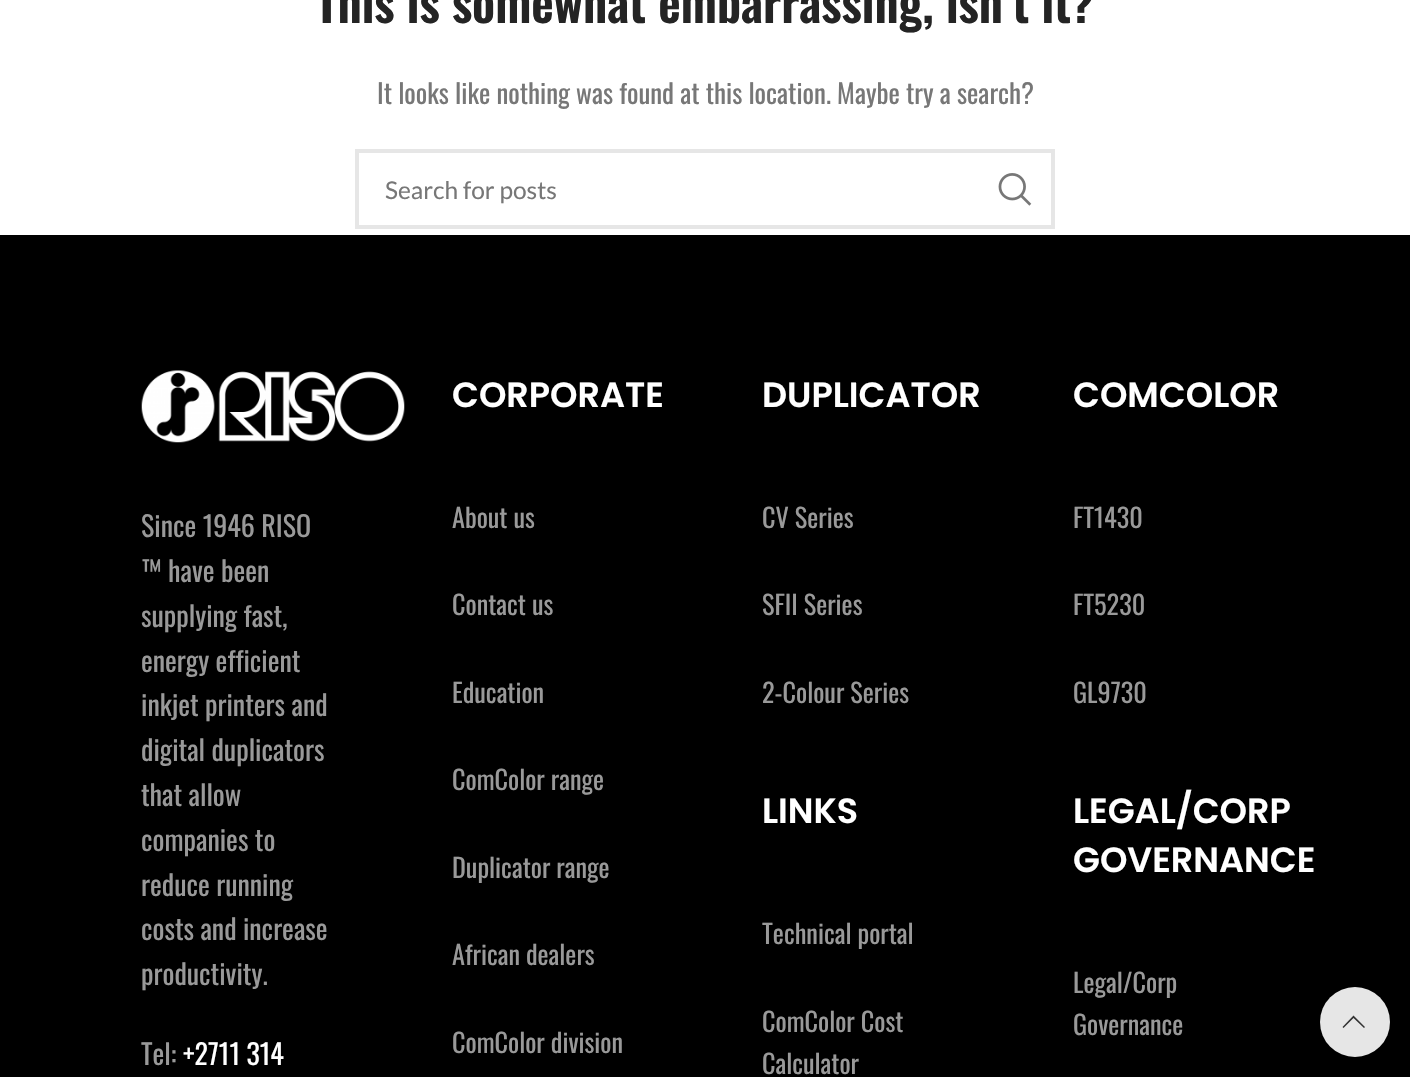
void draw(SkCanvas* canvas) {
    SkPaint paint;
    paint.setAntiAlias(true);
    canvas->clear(0xFFFFFFFF);
    SkFont font1(fontMgr->matchFamilyStyle("Oswald", SkFontStyle(600, SkFontStyle::kNormal_Width, SkFontStyle::kUpright_Slant)), 49);
    font1.setSubpixel(true);
    paint.setColor(0xFF242424);
    canvas->drawString("This is somewhat embarrassing, isn’t it?", 316, 23, font1, paint);
    SkFont font2(fontMgr->matchFamilyStyle("Oswald", SkFontStyle::Normal()), 26.95f);
    font2.setSubpixel(true);
    paint.setColor(0xFF777777);
    canvas->drawString("It looks like nothing was found at this location. Maybe try a search?", 377, 104, font2, paint);
    paint.setStyle(SkPaint::kStroke_Style);
    paint.setStrokeWidth(4);
    paint.setColor(0xFFE6E6E6);
    canvas->drawRect(SkRect::MakeXYWH(357, 151, 696, 76), paint);
    SkFont font3(fontMgr->matchFamilyStyle("Lato", SkFontStyle::Normal()), 24.5f);
    font3.setSubpixel(true);
    paint.setStyle(SkPaint::kFill_Style);
    paint.setColor(0xFF777777);
    canvas->drawString("Search for posts", 385, 199, font3, paint);
    canvas->drawImageRect(SkImages::DeferredFromEncodedData(SkData::MakeFromFileName("img1.png")), SkRect::MakeXYWH(998, 173, 34, 33), SkSamplingOptions());
    paint.setColor(0xFF000000);
    canvas->drawRect(SkRect::MakeXYWH(0, 235, 1410, 842), paint);
    canvas->drawImageRect(SkImages::DeferredFromEncodedData(SkData::MakeFromFileName("img2.png")), SkRect::MakeXYWH(141, 370, 264, 73), SkSamplingOptions());
    SkFont font4(fontMgr->matchFamilyStyle("Oswald", SkFontStyle::Normal()), 28);
    font4.setSubpixel(true);
    paint.setColor(0xFF999999);
    canvas->drawString("Since 1946 RISO", 141, 537, font4, paint);
    canvas->drawString("™ have been", 141, 582, font4, paint);
    canvas->drawString("supplying fast,", 141, 627, font4, paint);
    canvas->drawString("energy efficient", 141, 672, font4, paint);
    canvas->drawString("inkjet printers and", 141, 716, font4, paint);
    canvas->drawString("digital duplicators", 141, 761, font4, paint);
    canvas->drawString("that allow", 141, 806, font4, paint);
    canvas->drawString("companies to", 141, 851, font4, paint);
    canvas->drawString("reduce running", 141, 896, font4, paint);
    canvas->drawString("costs and increase", 141, 940, font4, paint);
    canvas->drawString("productivity.", 141, 985, font4, paint);
    canvas->drawString("Tel:", 141, 1065, font4, paint);
    paint.setColor(0xFFFFFFFF);
    canvas->drawString("+2711 314", 183, 1065, font4, paint);
    SkFont font5(fontMgr->matchFamilyStyle("Poppins", SkFontStyle(600, SkFontStyle::kNormal_Width, SkFontStyle::kUpright_Slant)), 35);
    font5.setSubpixel(true);
    canvas->drawString("CORPORATE", 452, 407, font5, paint);
    SkFont font6(fontMgr->matchFamilyStyle("Oswald", SkFontStyle::Normal()), 26.25f);
    font6.setSubpixel(true);
    paint.setColor(0xFF999999);
    canvas->drawString("About us", 452, 528, font6, paint);
    canvas->drawString("Contact us", 452, 615, font6, paint);
    canvas->drawString("Education", 452, 703, font6, paint);
    canvas->drawString("ComColor range", 452, 790, font6, paint);
    canvas->drawString("Duplicator range", 452, 878, font6, paint);
    canvas->drawString("African dealers", 452, 965, font6, paint);
    canvas->drawString("ComColor division", 452, 1053, font6, paint);
    paint.setColor(0xFFFFFFFF);
    canvas->drawString("DUPLICATOR", 762, 407, font5, paint);
    paint.setColor(0xFF999999);
    canvas->drawString("CV Series", 762, 528, font6, paint);
    canvas->drawString("SFII Series", 762, 615, font6, paint);
    canvas->drawString("2-Colour Series", 762, 703, font6, paint);
    paint.setColor(0xFFFFFFFF);
    canvas->drawString("LINKS", 762, 823, font5, paint);
    paint.setColor(0xFF999999);
    canvas->drawString("Technical portal", 762, 944, font6, paint);
    canvas->drawString("ComColor Cost", 762, 1032, font6, paint);
    canvas->drawString("Calculator", 762, 1074, font6, paint);
    paint.setColor(0xFFFFFFFF);
    canvas->drawString("COMCOLOR", 1073, 407, font5, paint);
    paint.setColor(0xFF999999);
    canvas->drawString("FT1430", 1073, 528, font6, paint);
    canvas->drawString("FT5230", 1073, 615, font6, paint);
    canvas->drawString("GL9730", 1073, 703, font6, paint);
    paint.setColor(0xFFFFFFFF);
    canvas->drawString("LEGAL/CORP", 1073, 823, font5, paint);
    canvas->drawString("GOVERNANCE", 1073, 872, font5, paint);
    paint.setColor(0xFF999999);
    canvas->drawString("Legal/Corp", 1073, 993, font6, paint);
    canvas->drawString("Governance", 1073, 1035, font6, paint);
    paint.setColor(0xFFE6E6E6);
    canvas->drawCircle(1355, 1022, 35, paint);
    paint.setColor(0xFF333333);
    canvas->drawPath(SkPathBuilder().moveTo(1364, 1028).lineTo(1365, 1027).lineTo(1353.5f, 1015.5f).lineTo(1342.5f, 1027).lineTo(1343.5f, 1028).lineTo(1353.5f, 1018).close().detach(), paint);
}
